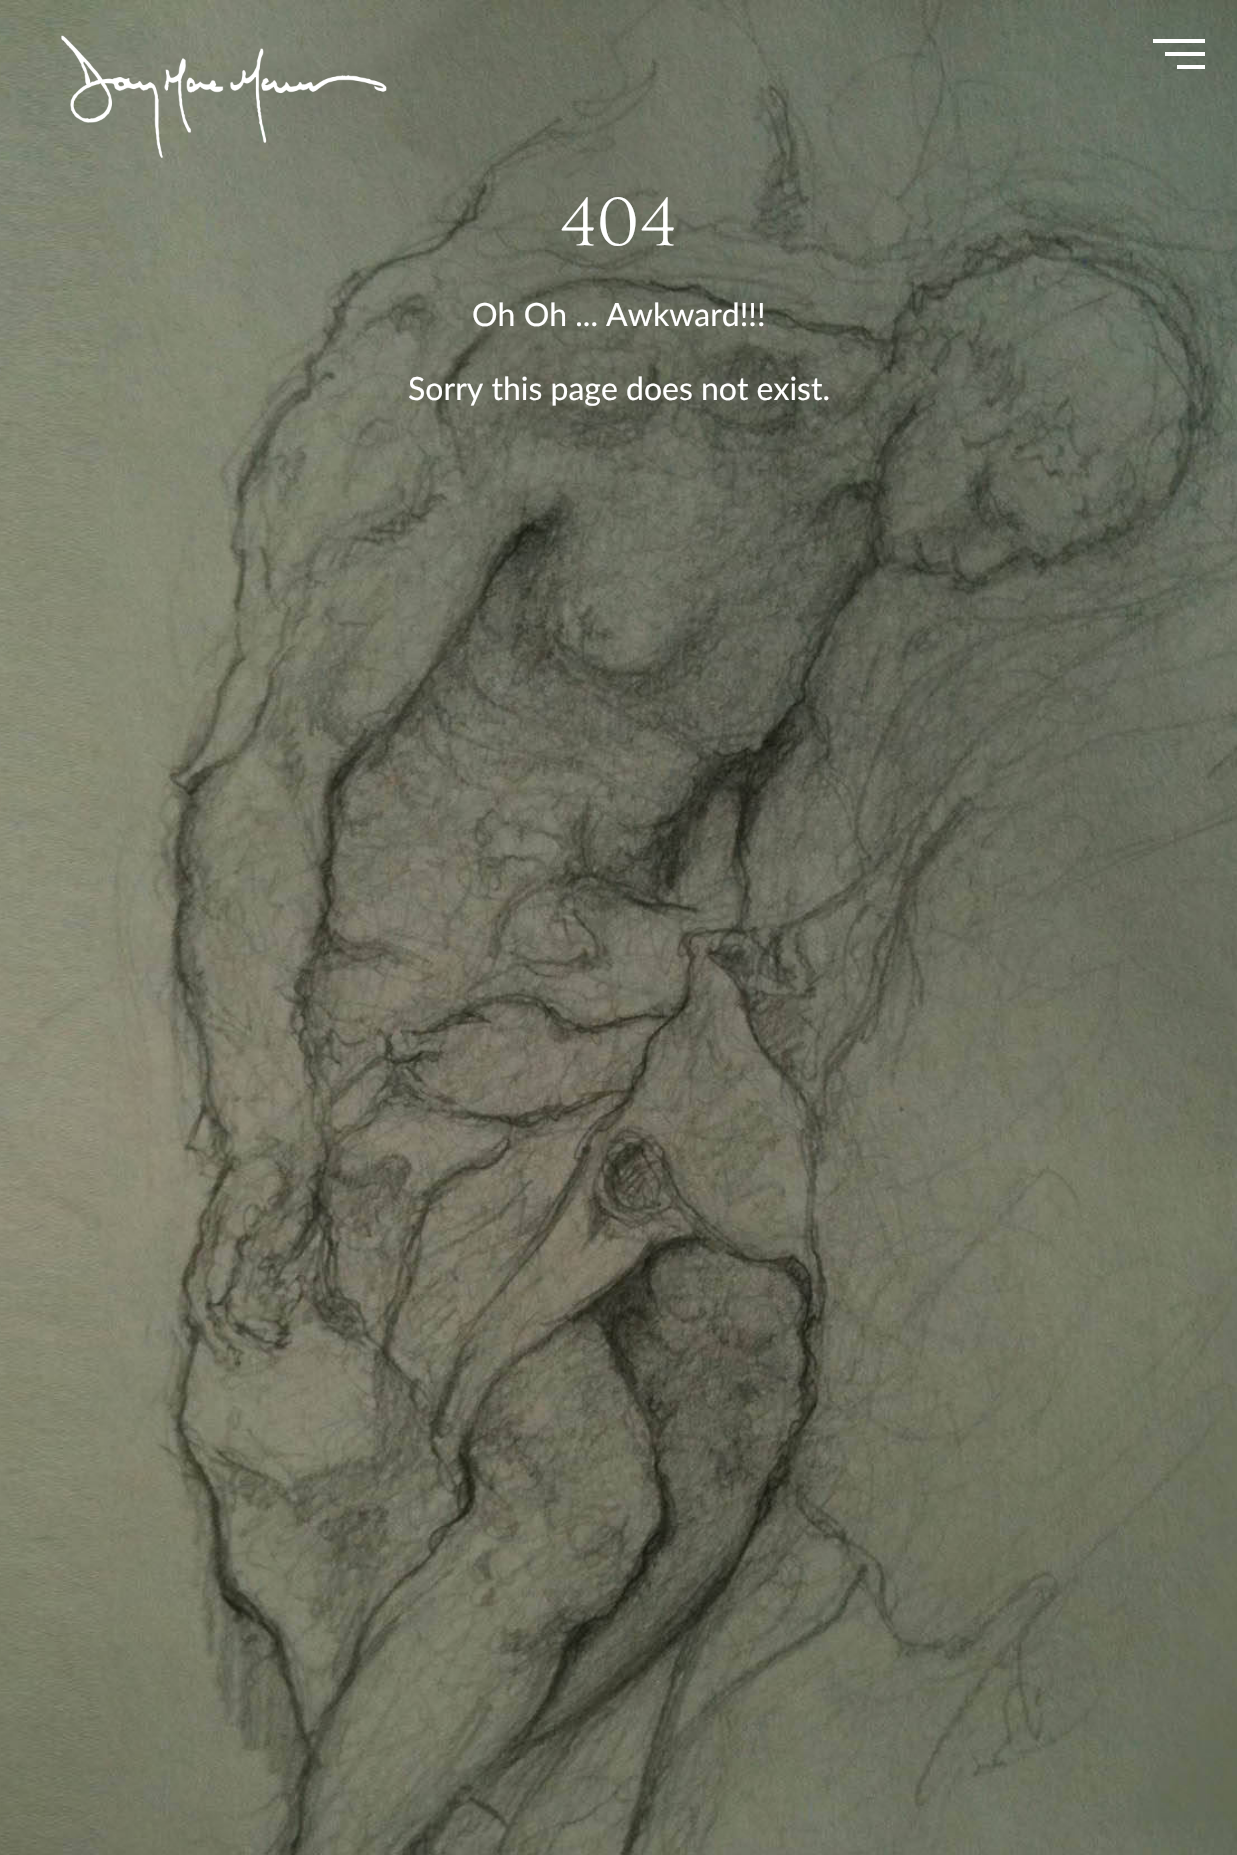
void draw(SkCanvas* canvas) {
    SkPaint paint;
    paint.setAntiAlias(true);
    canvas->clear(0xFFFFFFFF);
    canvas->drawImageRect(SkImages::DeferredFromEncodedData(SkData::MakeFromFileName("img1.png")), SkRect::MakeXYWH(0, 0, 1237, 1855), SkSamplingOptions());
    canvas->drawImageRect(SkImages::DeferredFromEncodedData(SkData::MakeFromFileName("img2.png")), SkRect::MakeXYWH(61, 35, 326, 124), SkSamplingOptions());
    paint.setColor(0xFFFFFFFF);
    canvas->drawRect(SkRect::MakeXYWH(1153, 39, 52, 4), paint);
    canvas->drawRect(SkRect::MakeXYWH(1165, 52, 40, 4), paint);
    canvas->drawRect(SkRect::MakeXYWH(1177, 65, 28, 4), paint);
    SkFont font1(fontMgr->matchFamilyStyle("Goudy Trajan", SkFontStyle::Normal()), 67);
    font1.setSubpixel(true);
    canvas->drawString("404", 559, 245, font1, paint);
    SkFont font2(fontMgr->matchFamilyStyle("Lato", SkFontStyle::Normal()), 32);
    font2.setSubpixel(true);
    canvas->drawString("Oh Oh ... Awkward!!!", 472, 326, font2, paint);
    canvas->drawString("Sorry this page does not exist.", 408, 400, font2, paint);
}
